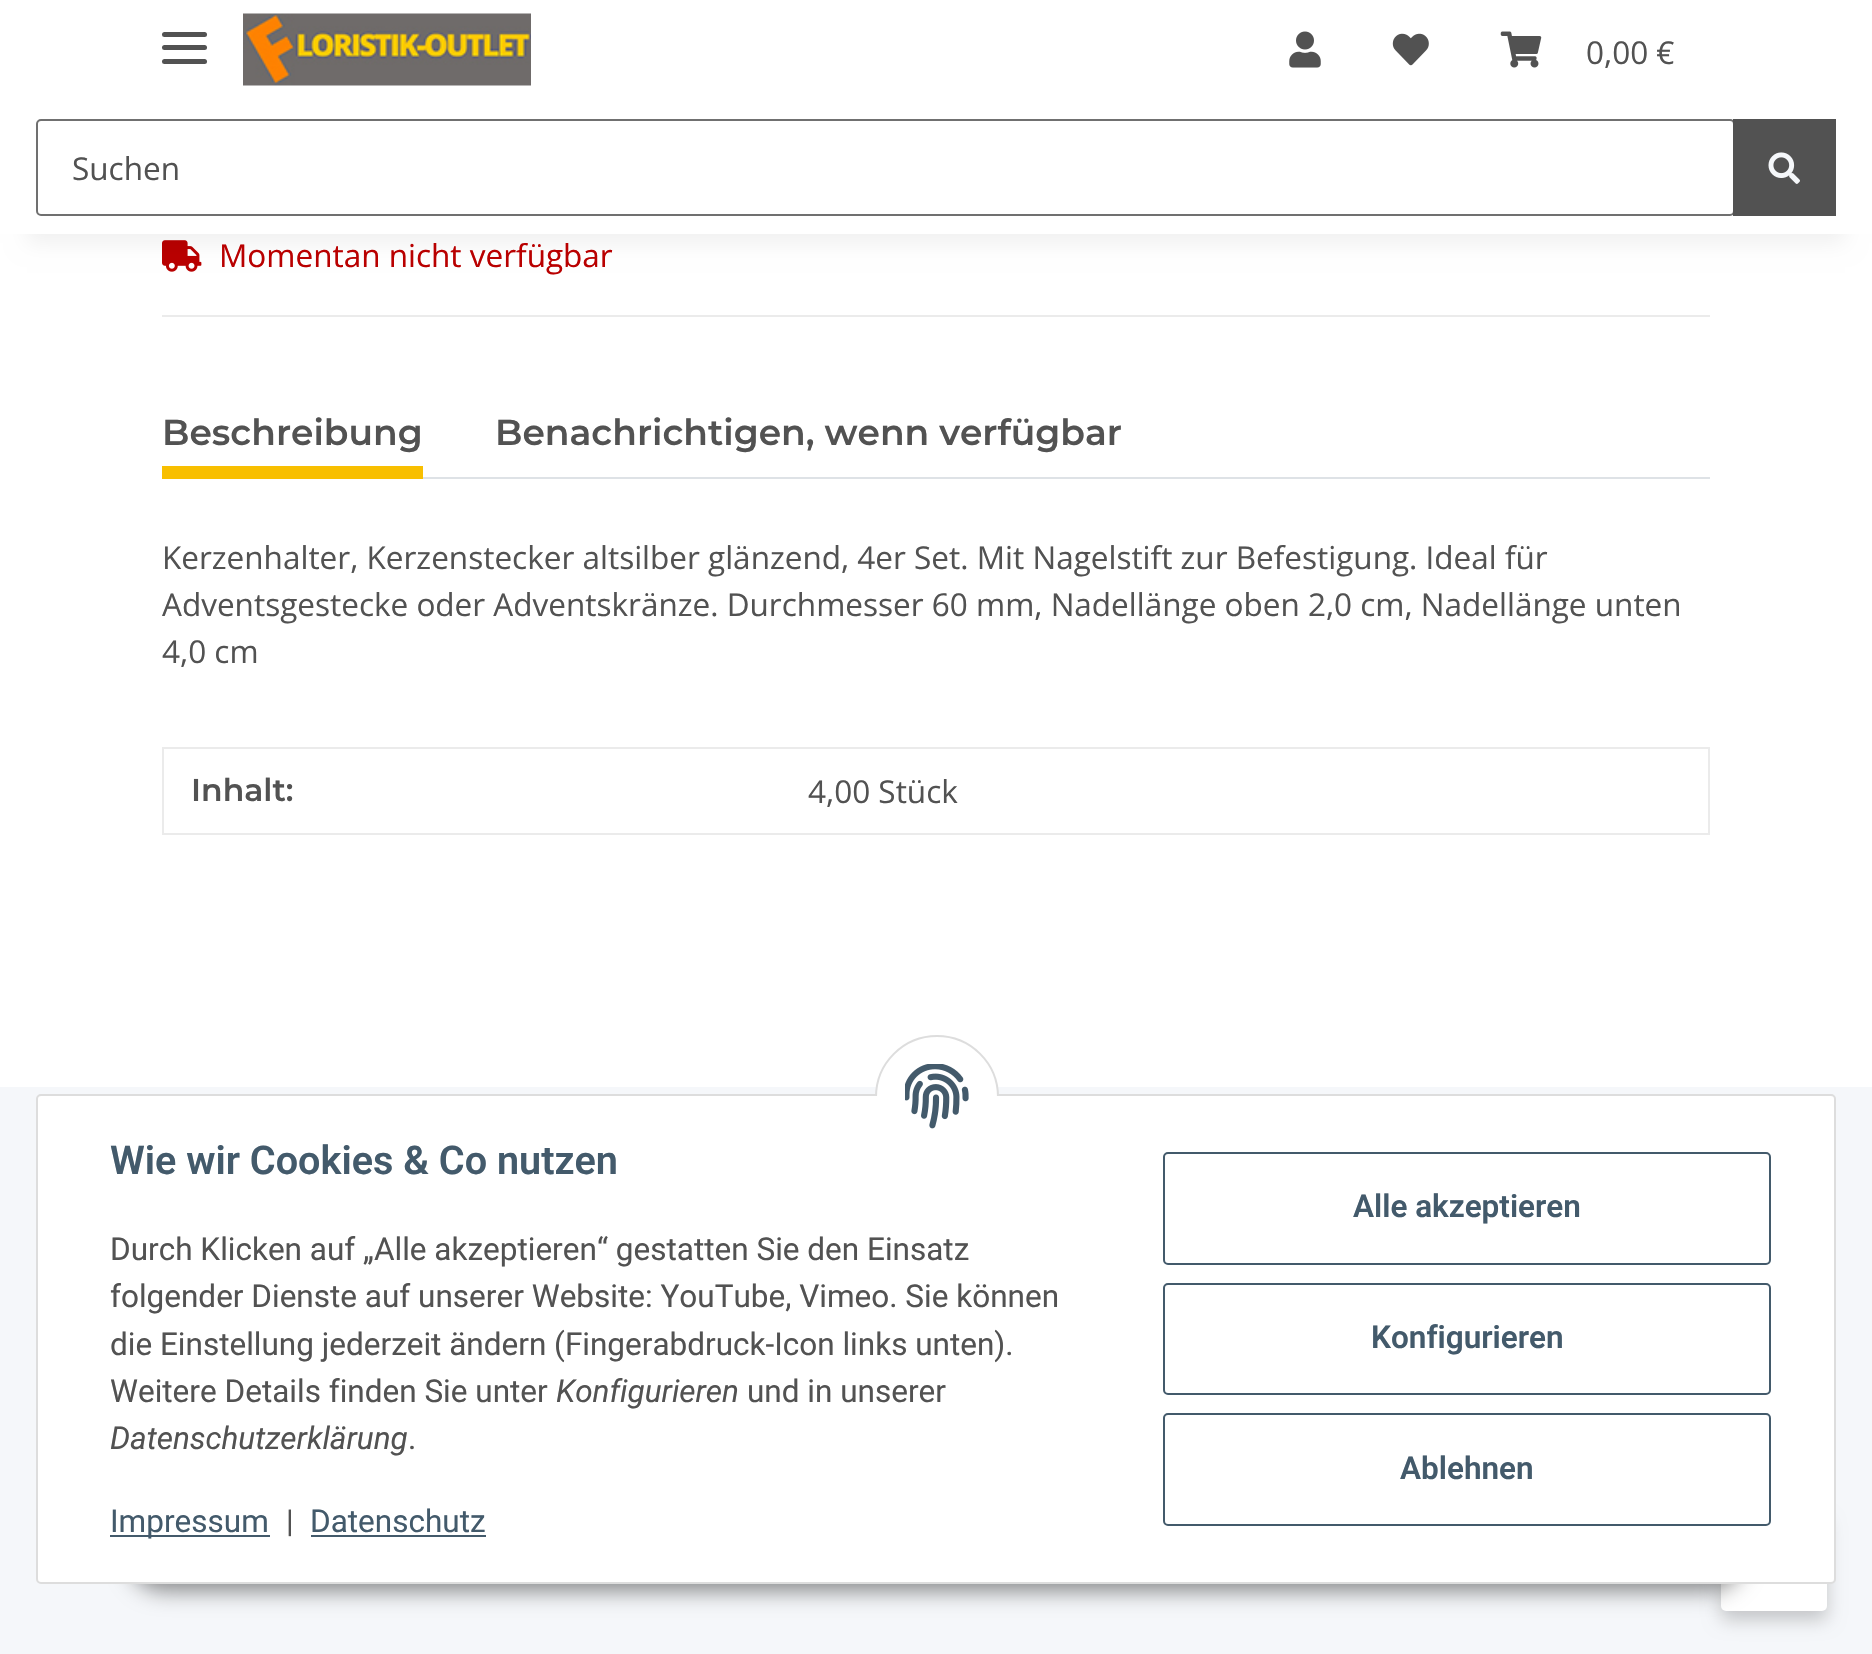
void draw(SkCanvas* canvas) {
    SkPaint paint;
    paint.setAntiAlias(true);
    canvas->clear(0xFFF5F7FA);
    paint.setColor(0xFFFFFFFF);
    canvas->drawRect(SkRect::MakeXYWH(0, 234, 1872, 853), paint);
    canvas->drawImageRect(SkImages::DeferredFromEncodedData(SkData::MakeFromFileName("img6.png")), SkRect::MakeXYWH(162, 240, 40, 32), SkSamplingOptions());
    paint.setColor(0x0F000000);
    paint.setMaskFilter(SkMaskFilter::MakeBlur(kNormal_SkBlurStyle, 10));
    canvas->drawRect(SkRect::MakeXYWH(27, 63, 1818, 180), paint);
    paint.setMaskFilter(nullptr);
    paint.setColor(0xFFFFFFFF);
    canvas->drawRect(SkRect::MakeXYWH(0, 0, 1872, 234), paint);
    paint.setColor(0xFF525252);
    canvas->drawRoundRect(SkRect::MakeXYWH(162, 45, 45, 5), 2.5f, 2.5f, paint);
    canvas->drawRoundRect(SkRect::MakeXYWH(162, 32, 45, 5), 2.5f, 2.5f, paint);
    canvas->drawRoundRect(SkRect::MakeXYWH(162, 59, 45, 5), 2.5f, 2.5f, paint);
    canvas->drawImageRect(SkImages::DeferredFromEncodedData(SkData::MakeFromFileName("img1.png")), SkRect::MakeXYWH(243, 13, 288, 73), SkSamplingOptions());
    canvas->drawImageRect(SkImages::DeferredFromEncodedData(SkData::MakeFromFileName("img2.png")), SkRect::MakeXYWH(1289, 31, 32, 37), SkSamplingOptions());
    canvas->drawImageRect(SkImages::DeferredFromEncodedData(SkData::MakeFromFileName("img3.png")), SkRect::MakeXYWH(1392, 33, 37, 33), SkSamplingOptions());
    canvas->drawImageRect(SkImages::DeferredFromEncodedData(SkData::MakeFromFileName("img4.png")), SkRect::MakeXYWH(1500, 31, 42, 37), SkSamplingOptions());
    SkFont font1(fontMgr->matchFamilyStyle("Open Sans", SkFontStyle::Normal()), 31.5f);
    font1.setSubpixel(true);
    canvas->drawString("0,00 €", 1586, 64, font1, paint);
    paint.setStyle(SkPaint::kStroke_Style);
    paint.setStrokeWidth(2);
    paint.setColor(0xFF707070);
    canvas->drawRoundRect(SkRect::MakeXYWH(37, 120, 1697, 95), 4, 4, paint);
    paint.setStyle(SkPaint::kFill_Style);
    paint.setColor(0xFF525252);
    canvas->drawString("Suchen", 72, 180, font1, paint);
    canvas->drawRect(SkRect::MakeXYWH(1733, 119, 103, 97), paint);
    canvas->drawImageRect(SkImages::DeferredFromEncodedData(SkData::MakeFromFileName("img5.png")), SkRect::MakeXYWH(1768, 152, 32, 32), SkSamplingOptions());
    paint.setColor(0xFFEBEBEB);
    canvas->drawRect(SkRect::MakeXYWH(162, 315, 1548, 2), paint);
    paint.setColor(0xFFB90000);
    canvas->drawString("Momentan nicht verfügbar", 219, 267, font1, paint);
    paint.setColor(0xFFDEE2E6);
    canvas->drawRect(SkRect::MakeXYWH(423, 477, 1287, 2), paint);
    SkFont font2(fontMgr->matchFamilyStyle("Montserrat", SkFontStyle(600, SkFontStyle::kNormal_Width, SkFontStyle::kUpright_Slant)), 36);
    font2.setSubpixel(true);
    paint.setColor(0xFF525252);
    canvas->drawString("Beschreibung", 162, 445, font2, paint);
    paint.setColor(0xFFF8BF00);
    canvas->drawRect(SkRect::MakeXYWH(162, 466, 261, 13), paint);
    paint.setColor(0xFF525252);
    canvas->drawString("Benachrichtigen, wenn verfügbar", 495, 445, font2, paint);
    canvas->drawString("Kerzenhalter, Kerzenstecker altsilber glänzend, 4er Set. Mit Nagelstift zur Befestigung. Ideal für", 162, 569, font1, paint);
    canvas->drawString("Adventsgestecke oder Adventskränze. Durchmesser 60 mm, Nadellänge oben 2,0 cm, Nadellänge unten", 162, 616, font1, paint);
    canvas->drawString("4,0 cm", 162, 663, font1, paint);
    paint.setColor(0xFFEBEBEB);
    canvas->drawRect(SkRect::MakeXYWH(162, 747, 1548, 2), paint);
    canvas->drawRect(SkRect::MakeXYWH(1708, 747, 2, 88), paint);
    canvas->drawRect(SkRect::MakeXYWH(162, 833, 1548, 2), paint);
    canvas->drawRect(SkRect::MakeXYWH(162, 747, 2, 88), paint);
    SkFont font3(fontMgr->matchFamilyStyle("Montserrat", SkFontStyle(600, SkFontStyle::kNormal_Width, SkFontStyle::kUpright_Slant)), 31.5f);
    font3.setSubpixel(true);
    paint.setColor(0xFF525252);
    canvas->drawString("Inhalt:", 191, 801, font3, paint);
    canvas->drawString("4,00 Stück", 808, 803, font1, paint);
    paint.setColor(0x33000000);
    paint.setMaskFilter(SkMaskFilter::MakeBlur(kNormal_SkBlurStyle, 9));
    canvas->drawRoundRect(SkRect::MakeXYWH(1721, 1521, 106, 99), 5, 5, paint);
    paint.setMaskFilter(nullptr);
    paint.setColor(0xFFFFFFFF);
    canvas->drawRoundRect(SkRect::MakeXYWH(1721, 1512, 106, 99), 5, 5, paint);
    paint.setColor(0x73000000);
    paint.setMaskFilter(SkMaskFilter::MakeBlur(kNormal_SkBlurStyle, 11));
    canvas->drawRoundRect(SkRect::MakeXYWH(128, 1519, 1616, 72), 36, 36, paint);
    paint.setMaskFilter(nullptr);
    paint.setColor(0xFFFFFFFF);
    canvas->drawRoundRect(SkRect::MakeXYWH(37, 1095, 1798, 488), 4, 4, paint);
    paint.setStyle(SkPaint::kStroke_Style);
    paint.setColor(0xFFDDDDDD);
    canvas->drawRoundRect(SkRect::MakeXYWH(37, 1095, 1798, 488), 4, 4, paint);
    paint.setStyle(SkPaint::kFill_Style);
    paint.setColor(0xFFFFFFFF);
    canvas->drawCircle(937, 1097, 61, paint);
    paint.setStyle(SkPaint::kStroke_Style);
    paint.setColor(0xFFDDDDDD);
    canvas->drawCircle(937, 1097, 61, paint);
    paint.setStyle(SkPaint::kFill_Style);
    paint.setColor(0xFFFFFFFF);
    canvas->drawRect(SkRect::MakeXYWH(875, 1096, 124, 63), paint);
    canvas->drawImageRect(SkImages::DeferredFromEncodedData(SkData::MakeFromFileName("img7.png")), SkRect::MakeXYWH(905, 1064, 64, 65), SkSamplingOptions());
    SkFont font4(fontMgr->matchFamilyStyle("Roboto", SkFontStyle(600, SkFontStyle::kNormal_Width, SkFontStyle::kUpright_Slant)), 39.6f);
    font4.setSubpixel(true);
    paint.setColor(0xFF435A6B);
    canvas->drawString("Wie wir Cookies & Co nutzen", 110, 1174, font4, paint);
    SkFont font5(fontMgr->matchFamilyStyle("Roboto", SkFontStyle::Normal()), 31.5f);
    font5.setSubpixel(true);
    paint.setColor(0xFF525252);
    canvas->drawString("Durch Klicken auf „Alle akzeptieren“ gestatten Sie den Einsatz", 110, 1260, font5, paint);
    canvas->drawString("folgender Dienste auf unserer Website: YouTube, Vimeo. Sie können", 110, 1307, font5, paint);
    canvas->drawString("die Einstellung jederzeit ändern (Fingerabdruck-Icon links unten).", 110, 1355, font5, paint);
    canvas->drawString("Weitere Details finden Sie unter", 110, 1402, font5, paint);
    SkFont font6(fontMgr->matchFamilyStyle("Roboto", SkFontStyle::Italic()), 31.5f);
    font6.setSubpixel(true);
    canvas->drawString("Konfigurieren", 556, 1402, font6, paint);
    canvas->drawString("und in unserer", 747, 1402, font5, paint);
    canvas->drawString("Datenschutzerklärung", 110, 1449, font6, paint);
    canvas->drawString(".", 408, 1449, font5, paint);
    paint.setColor(0xFF435A6B);
    canvas->drawRect(SkRect::MakeXYWH(110, 1535, 160, 2), paint);
    canvas->drawString("Impressum", 110, 1532, font5, paint);
    paint.setColor(0xFF525252);
    canvas->drawString("|", 286, 1532, font5, paint);
    paint.setColor(0xFF435A6B);
    canvas->drawString("Datenschutz", 310, 1532, font5, paint);
    canvas->drawRect(SkRect::MakeXYWH(311, 1535, 175, 2), paint);
    paint.setStyle(SkPaint::kStroke_Style);
    canvas->drawRoundRect(SkRect::MakeXYWH(1164, 1153, 606, 111), 4, 4, paint);
    SkFont font7(fontMgr->matchFamilyStyle("Roboto", SkFontStyle(600, SkFontStyle::kNormal_Width, SkFontStyle::kUpright_Slant)), 31.5f);
    font7.setSubpixel(true);
    paint.setStyle(SkPaint::kFill_Style);
    canvas->drawString("Alle akzeptieren", 1353, 1217, font7, paint);
    paint.setStyle(SkPaint::kStroke_Style);
    canvas->drawRoundRect(SkRect::MakeXYWH(1164, 1284, 606, 110), 4, 4, paint);
    paint.setStyle(SkPaint::kFill_Style);
    canvas->drawString("Konfigurieren", 1371, 1348, font7, paint);
    paint.setStyle(SkPaint::kStroke_Style);
    canvas->drawRoundRect(SkRect::MakeXYWH(1164, 1414, 606, 111), 4, 4, paint);
    paint.setStyle(SkPaint::kFill_Style);
    canvas->drawString("Ablehnen", 1400, 1479, font7, paint);
}
